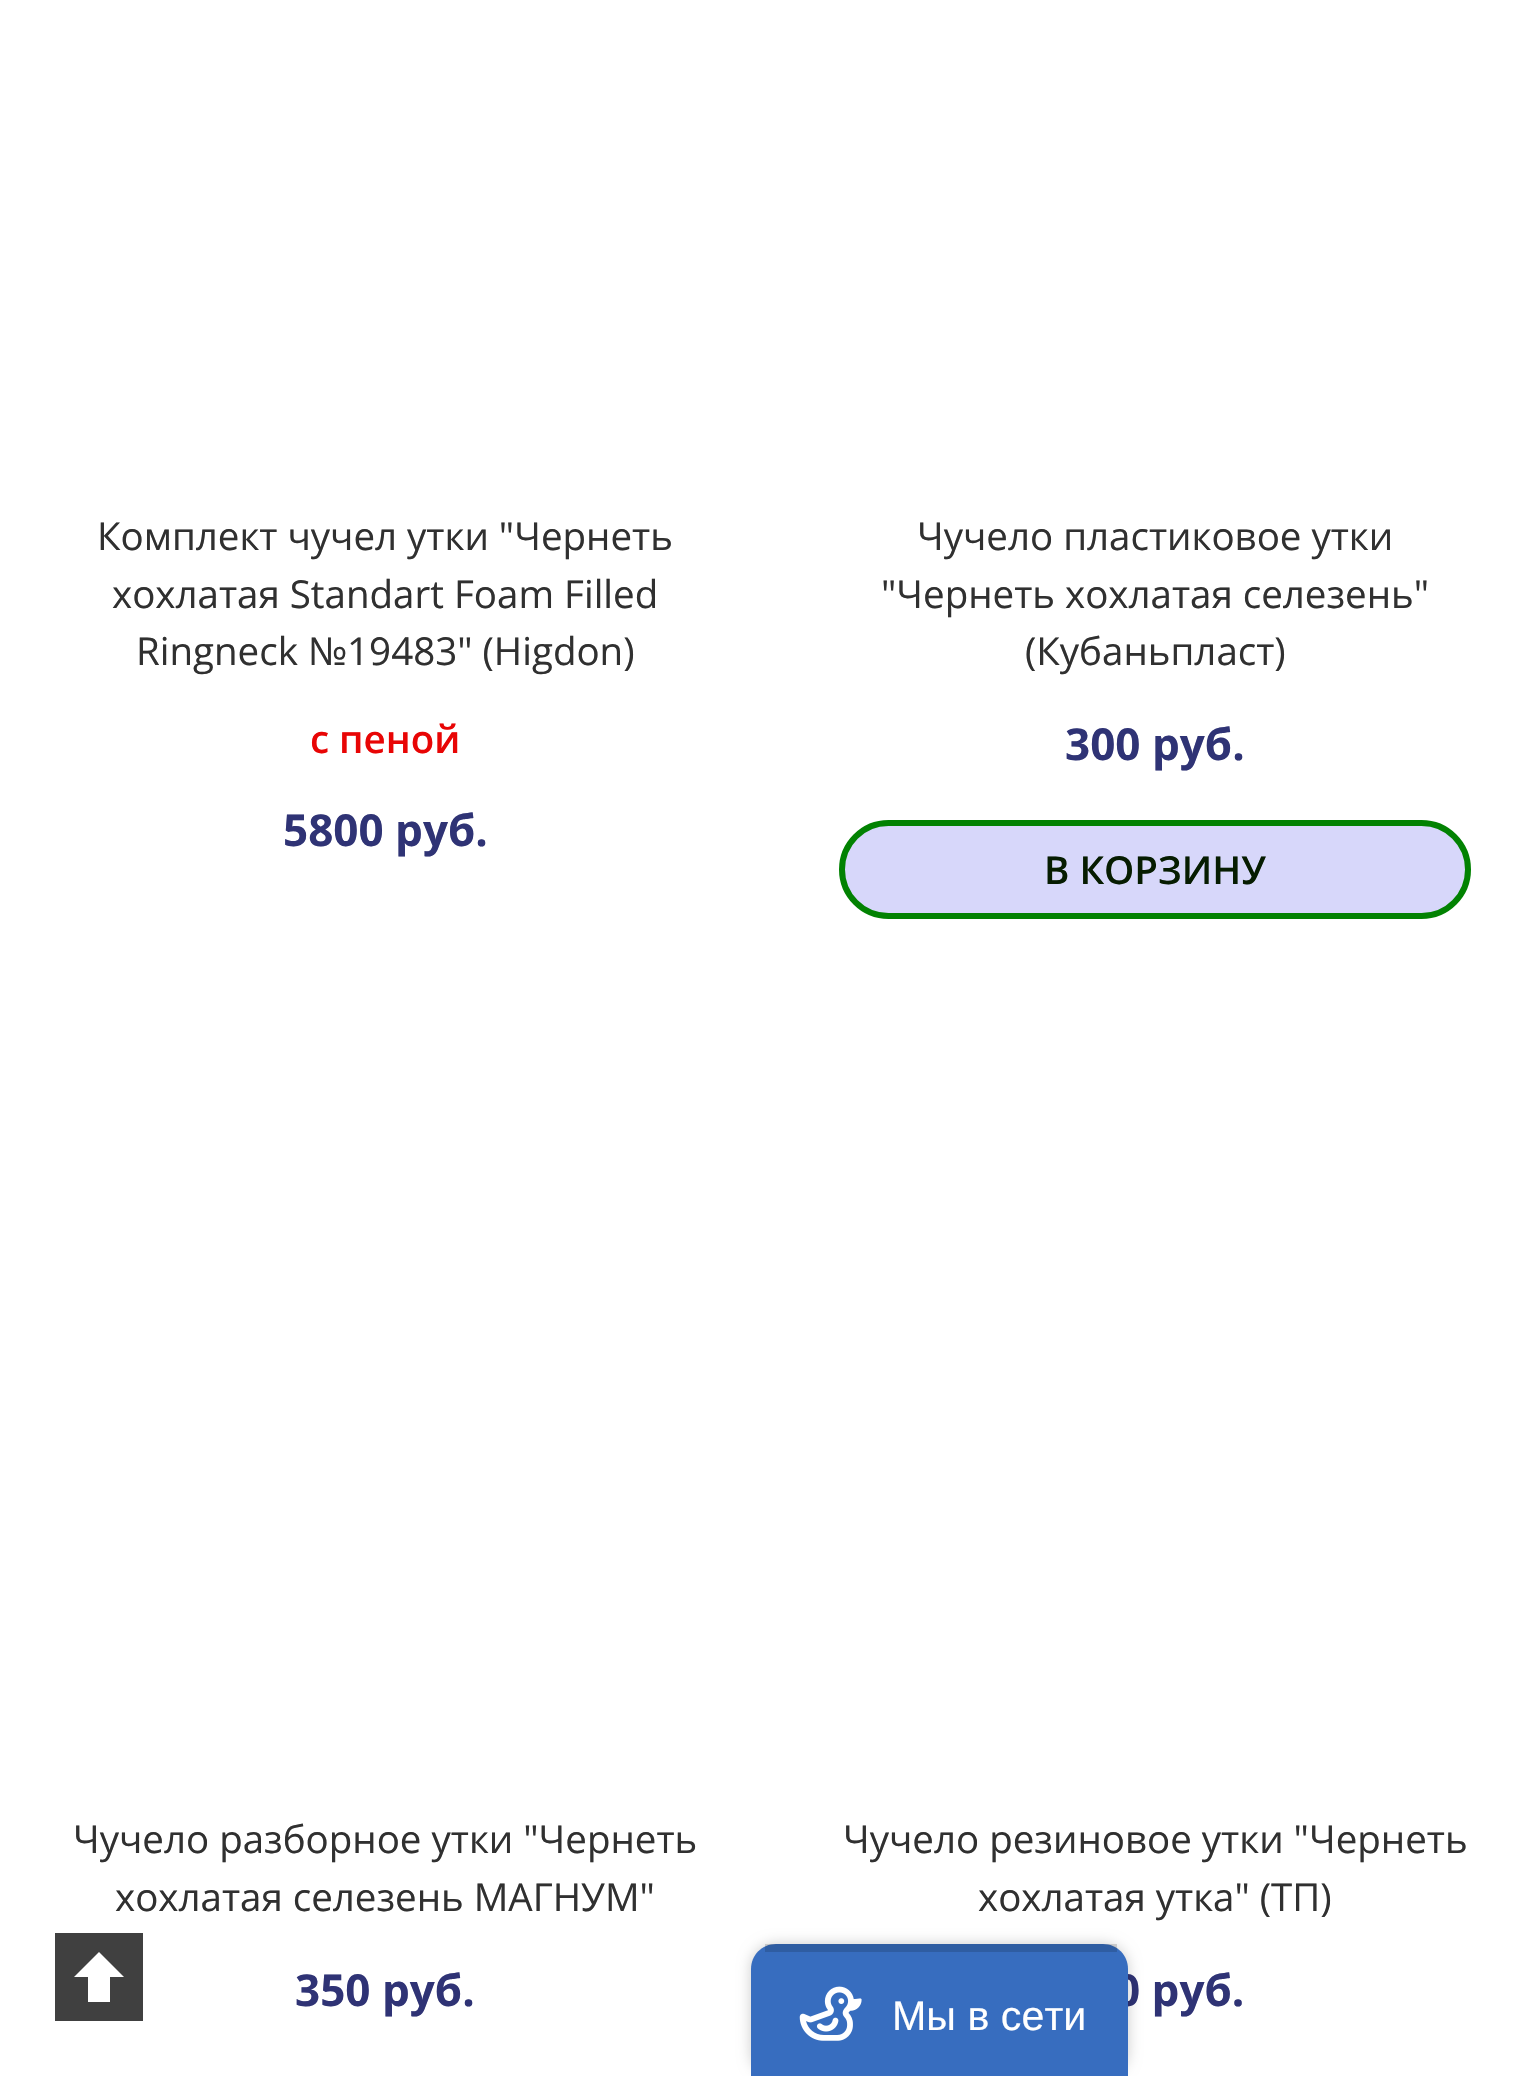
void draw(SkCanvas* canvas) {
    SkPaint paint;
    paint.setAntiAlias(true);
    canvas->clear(0xFFFFFFFF);
    SkFont font1(fontMgr->matchFamilyStyle("Open Sans", SkFontStyle::Normal()), 38.5f);
    font1.setSubpixel(true);
    paint.setColor(0xFF303030);
    canvas->drawString("Комплект чучел утки \"Чернеть", 97, 550, font1, paint);
    canvas->drawString("хохлатая Standart Foam Filled", 112, 608, font1, paint);
    canvas->drawString("Ringneck №19483\" (Higdon)", 136, 665, font1, paint);
    SkFont font2(fontMgr->matchFamilyStyle("Open Sans", SkFontStyle(600, SkFontStyle::kNormal_Width, SkFontStyle::kUpright_Slant)), 38.5f);
    font2.setSubpixel(true);
    paint.setColor(0xFFE80505);
    canvas->drawString("с пеной", 310, 753, font2, paint);
    SkFont font3(fontMgr->matchFamilyStyle("Open Sans", SkFontStyle::Bold()), 44);
    font3.setSubpixel(true);
    paint.setColor(0xFF2F3375);
    canvas->drawString("5800 руб.", 283, 846, font3, paint);
    paint.setColor(0xFF303030);
    canvas->drawString("Чучело пластиковое утки", 917, 550, font1, paint);
    canvas->drawString("\"Чернеть хохлатая селезень\"", 881, 608, font1, paint);
    canvas->drawString("(Кубаньпласт)", 1025, 665, font1, paint);
    paint.setColor(0xFF2F3375);
    canvas->drawString("300 руб.", 1065, 760, font3, paint);
    paint.setColor(0xFFD7D7FA);
    canvas->drawRoundRect(SkRect::MakeXYWH(842, 823, 626, 93), 46.5f, 46.5f, paint);
    paint.setStyle(SkPaint::kStroke_Style);
    paint.setStrokeWidth(6);
    paint.setColor(0xFF028202);
    canvas->drawRoundRect(SkRect::MakeXYWH(842, 823, 626, 93), 46.5f, 46.5f, paint);
    paint.setStyle(SkPaint::kFill_Style);
    paint.setColor(0xFF061C01);
    canvas->drawString("В КОРЗИНУ", 1044, 884, font2, paint);
    paint.setColor(0xFF303030);
    canvas->drawString("Чучело разборное утки \"Чернеть", 73, 1853, font1, paint);
    canvas->drawString("хохлатая селезень МАГНУМ\"", 115, 1911, font1, paint);
    paint.setColor(0xFF2F3375);
    canvas->drawString("350 руб.", 295, 2006, font3, paint);
    paint.setColor(0xFF303030);
    canvas->drawString("Чучело резиновое утки \"Чернеть", 843, 1853, font1, paint);
    canvas->drawString("хохлатая утка\" (ТП)", 978, 1911, font1, paint);
    paint.setColor(0xFF2F3375);
    canvas->drawString("0 руб.", 1115, 2006, font3, paint);
    paint.setColor(0xFF404040);
    canvas->drawRect(SkRect::MakeXYWH(55, 1933, 88, 88), paint);
    paint.setColor(0xFFFFFFFF);
    canvas->drawPath(SkPathBuilder().moveTo(74, 1977).lineTo(88, 1977).lineTo(88, 2002).lineTo(110, 2002).lineTo(110, 1977).lineTo(124, 1977).lineTo(99, 1952).lineTo(74, 1977).detach(), paint);
    paint.setColor(0x33000000);
    paint.setMaskFilter(SkMaskFilter::MakeBlur(kNormal_SkBlurStyle, 7));
    canvas->drawRoundRect(SkRect::MakeXYWH(751, 1944, 377, 132), 25, 25, paint);
    paint.setMaskFilter(nullptr);
    paint.setColor(0xFF376DBF);
    canvas->drawPath(SkPathBuilder().moveTo(776, 1944).lineTo(1103, 1944).cubicTo(1117, 1944, 1128, 1955, 1128, 1969).lineTo(1128, 2076).lineTo(751, 2076).lineTo(751, 1969).cubicTo(751, 1955, 762, 1944, 776, 1944).close().detach(), paint);
    paint.setColor(0x26000000);
    canvas->drawRect(SkRect::MakeXYWH(765, 1944, 352, 8), paint);
    canvas->drawImageRect(SkImages::DeferredFromEncodedData(SkData::MakeFromFileName("img1.png")), SkRect::MakeXYWH(799, 1986, 63, 55), SkSamplingOptions());
    SkFont font4(fontMgr->matchFamilyStyle("Liberation Sans", SkFontStyle::Normal()), 41.25f);
    font4.setSubpixel(true);
    paint.setColor(0xFFFFFFFF);
    canvas->drawString("Мы в сети", 892, 2030, font4, paint);
}
